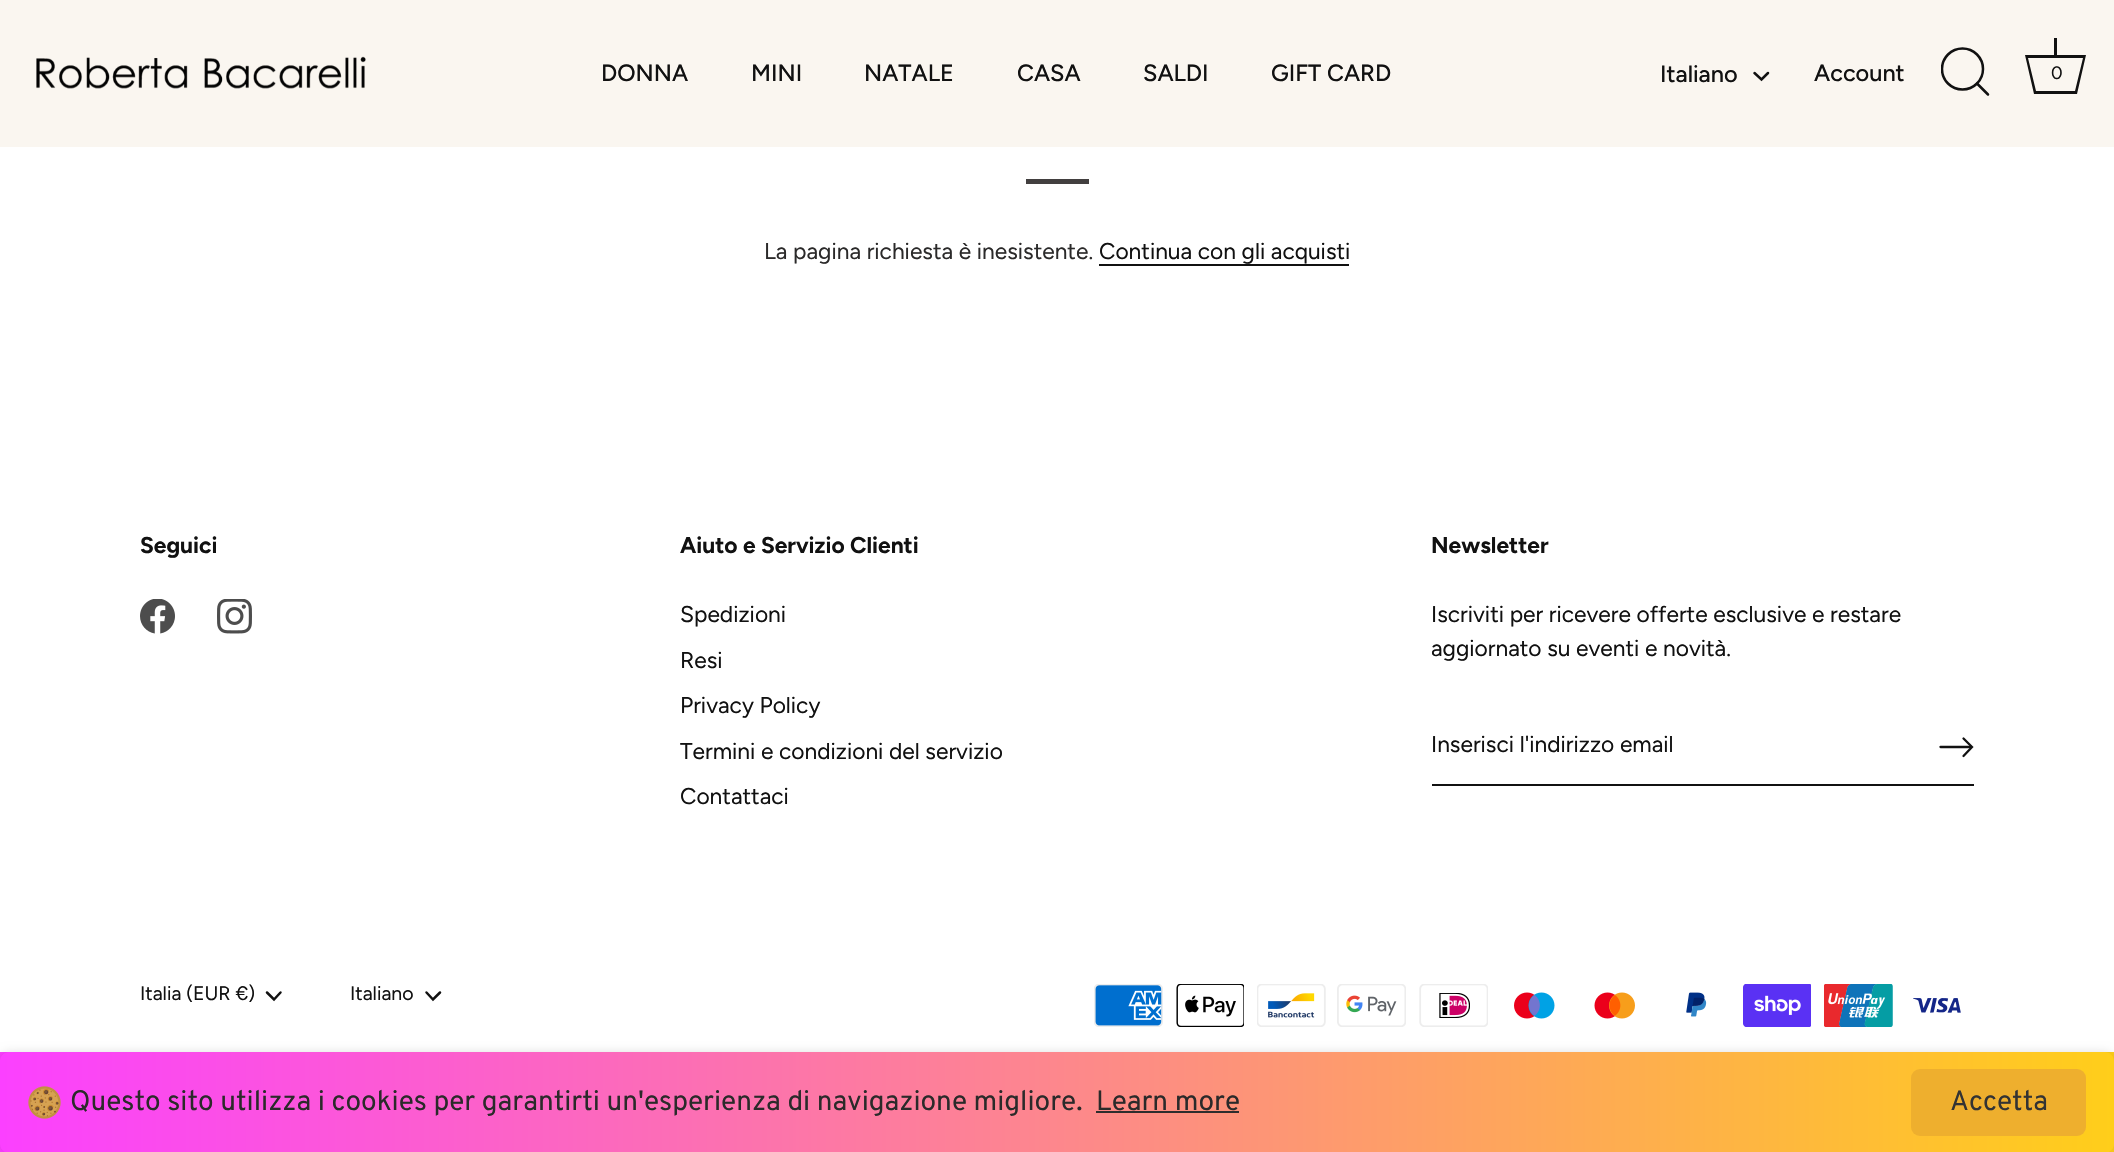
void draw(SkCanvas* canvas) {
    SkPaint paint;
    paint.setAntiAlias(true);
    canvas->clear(0xFFFFFFFF);
    paint.setColor(0xFFFAF6F0);
    canvas->drawRect(SkRect::MakeXYWH(0, 0, 2114, 147), paint);
    canvas->drawImageRect(SkImages::DeferredFromEncodedData(SkData::MakeFromFileName("img1.png")), SkRect::MakeXYWH(36, 56, 330, 33), SkSamplingOptions());
    SkFont font1(fontMgr->matchFamilyStyle("Figtree", SkFontStyle(500, SkFontStyle::kNormal_Width, SkFontStyle::kUpright_Slant)), 23.5f);
    font1.setSubpixel(true);
    paint.setColor(0xFF111111);
    canvas->drawString("DONNA", 601, 81, font1, paint);
    canvas->drawString("MINI", 751, 81, font1, paint);
    canvas->drawString("NATALE", 864, 81, font1, paint);
    canvas->drawString("CASA", 1017, 81, font1, paint);
    canvas->drawString("SALDI", 1143, 81, font1, paint);
    canvas->drawString("GIFT CARD", 1271, 81, font1, paint);
    canvas->drawString("Italiano", 1660, 82, font1, paint);
    paint.setStyle(SkPaint::kStroke_Style);
    paint.setStrokeWidth(2.5f);
    paint.setStrokeCap(SkPaint::kRound_Cap);
    canvas->drawPath(SkPathBuilder().moveTo(1754.5f, 73).lineTo(1761.5f, 79.5f).lineTo(1768, 73).detach(), paint);
    paint.setStyle(SkPaint::kFill_Style);
    canvas->drawString("Account", 1814, 81, font1, paint);
    canvas->save();
    canvas->clipRect(SkRect::MakeXYWH(1941, 47, 51, 51));
    paint.setStyle(SkPaint::kStroke_Style);
    paint.setStrokeCap(SkPaint::kButt_Cap);
    canvas->drawCircle(1962.5f, 69, 20.5f, paint);
    canvas->restore();
    paint.setStrokeCap(SkPaint::kRound_Cap);
    paint.setStrokeJoin(SkPaint::kRound_Join);
    canvas->drawPath(SkPathBuilder().moveTo(1988, 94.5f).lineTo(1977, 83.5f).detach(), paint);
    paint.setStyle(SkPaint::kFill_Style);
    canvas->drawRect(SkRect::MakeXYWH(2054, 38, 3, 17), paint);
    canvas->drawPath(SkPathBuilder().moveTo(2083, 58).lineTo(2075, 91).lineTo(2036, 91).lineTo(2028, 58).lineTo(2083, 58).moveTo(2086, 55).lineTo(2025, 55).lineTo(2034, 94).lineTo(2077, 94).close().detach(), paint);
    SkFont font2(fontMgr->matchFamilyStyle("Figtree", SkFontStyle::Normal()), 18);
    font2.setSubpixel(true);
    canvas->drawString("0", 2051, 79, font2, paint);
    paint.setColor(0xFF423F3F);
    canvas->drawRect(SkRect::MakeXYWH(1026, 179, 63, 5), paint);
    SkFont font3(fontMgr->matchFamilyStyle("Figtree", SkFontStyle::Normal()), 22.75f);
    font3.setSubpixel(true);
    paint.setColor(0xFF2B2A2A);
    canvas->drawString("La pagina richiesta è inesistente.", 764, 259, font3, paint);
    paint.setColor(0xFF111111);
    canvas->drawString("Continua con gli acquisti", 1099, 259, font3, paint);
    canvas->drawRect(SkRect::MakeXYWH(1099, 264, 250, 2), paint);
    SkFont font4(fontMgr->matchFamilyStyle("Figtree", SkFontStyle::Bold()), 22.75f);
    font4.setSubpixel(true);
    canvas->drawString("Seguici", 140, 553, font4, paint);
    canvas->drawImageRect(SkImages::DeferredFromEncodedData(SkData::MakeFromFileName("img2.png")), SkRect::MakeXYWH(140, 599, 35, 35), SkSamplingOptions());
    canvas->drawImageRect(SkImages::DeferredFromEncodedData(SkData::MakeFromFileName("img3.png")), SkRect::MakeXYWH(217, 599, 35, 35), SkSamplingOptions());
    canvas->drawString("Aiuto e Servizio Clienti", 680, 553, font4, paint);
    canvas->drawString("Spedizioni", 680, 622, font3, paint);
    canvas->drawString("Resi", 680, 668, font3, paint);
    canvas->drawString("Privacy Policy", 680, 713, font3, paint);
    canvas->drawString("Termini e condizioni del servizio", 680, 759, font3, paint);
    canvas->drawString("Contattaci", 680, 804, font3, paint);
    canvas->drawString("Newsletter", 1431, 553, font4, paint);
    canvas->drawString("Iscriviti per ricevere offerte esclusive e restare", 1431, 622, font3, paint);
    canvas->drawString("aggiornato su eventi e novità.", 1431, 656, font3, paint);
    canvas->drawRect(SkRect::MakeXYWH(1432, 784, 542, 2), paint);
    canvas->drawString("Inserisci l'indirizzo email", 1431, 752, font3, paint);
    paint.setStyle(SkPaint::kStroke_Style);
    paint.setStrokeWidth(2.3f);
    paint.setStrokeJoin(SkPaint::kMiter_Join);
    canvas->drawPath(SkPathBuilder().moveTo(1963.5f, 756).lineTo(1972, 747).lineTo(1963.5f, 738.5f).detach(), paint);
    paint.setStrokeJoin(SkPaint::kRound_Join);
    canvas->drawPath(SkPathBuilder().moveTo(1971, 747).lineTo(1940.5f, 747).detach(), paint);
    SkFont font5(fontMgr->matchFamilyStyle("Figtree", SkFontStyle::Normal()), 19.5f);
    font5.setSubpixel(true);
    paint.setStyle(SkPaint::kFill_Style);
    canvas->drawString("Italia (EUR €)", 140, 1000, font5, paint);
    paint.setStyle(SkPaint::kStroke_Style);
    paint.setStrokeWidth(2.5f);
    paint.setStrokeJoin(SkPaint::kMiter_Join);
    canvas->drawPath(SkPathBuilder().moveTo(267, 992.5f).lineTo(274, 999.5f).lineTo(280.5f, 992.5f).detach(), paint);
    paint.setStyle(SkPaint::kFill_Style);
    canvas->drawString("Italiano", 350, 1000, font5, paint);
    paint.setStyle(SkPaint::kStroke_Style);
    canvas->drawPath(SkPathBuilder().moveTo(426.5f, 992.5f).lineTo(433, 999.5f).lineTo(440, 992.5f).detach(), paint);
    canvas->drawImageRect(SkImages::DeferredFromEncodedData(SkData::MakeFromFileName("img4.png")), SkRect::MakeXYWH(1094, 984, 69, 43), SkSamplingOptions());
    canvas->drawImageRect(SkImages::DeferredFromEncodedData(SkData::MakeFromFileName("img5.png")), SkRect::MakeXYWH(1176, 984, 68, 43), SkSamplingOptions());
    canvas->drawImageRect(SkImages::DeferredFromEncodedData(SkData::MakeFromFileName("img6.png")), SkRect::MakeXYWH(1257, 984, 69, 43), SkSamplingOptions());
    canvas->drawImageRect(SkImages::DeferredFromEncodedData(SkData::MakeFromFileName("img7.png")), SkRect::MakeXYWH(1337, 984, 69, 43), SkSamplingOptions());
    canvas->drawImageRect(SkImages::DeferredFromEncodedData(SkData::MakeFromFileName("img8.png")), SkRect::MakeXYWH(1419, 984, 69, 43), SkSamplingOptions());
    canvas->drawImageRect(SkImages::DeferredFromEncodedData(SkData::MakeFromFileName("img9.png")), SkRect::MakeXYWH(1514, 992, 41, 27), SkSamplingOptions());
    canvas->drawImageRect(SkImages::DeferredFromEncodedData(SkData::MakeFromFileName("img10.png")), SkRect::MakeXYWH(1594, 992, 41, 27), SkSamplingOptions());
    canvas->drawImageRect(SkImages::DeferredFromEncodedData(SkData::MakeFromFileName("img11.png")), SkRect::MakeXYWH(1686, 992, 21, 25), SkSamplingOptions());
    canvas->drawImageRect(SkImages::DeferredFromEncodedData(SkData::MakeFromFileName("img12.png")), SkRect::MakeXYWH(1743, 984, 68, 43), SkSamplingOptions());
    canvas->drawImageRect(SkImages::DeferredFromEncodedData(SkData::MakeFromFileName("img13.png")), SkRect::MakeXYWH(1824, 984, 69, 43), SkSamplingOptions());
    canvas->drawImageRect(SkImages::DeferredFromEncodedData(SkData::MakeFromFileName("img14.png")), SkRect::MakeXYWH(1913, 998, 48, 15), SkSamplingOptions());
    paint.setStyle(SkPaint::kFill_Style);
    {
        const SkColor colors[] = {0xFFFB40FF, 0xFFFFCE1A};
        const float stops[] = {0, 1};
        const SkPoint ends[] = {{0, 1103}, {2114, 1103}};
        paint.setShader(SkGradientShader::MakeLinear(ends, colors, stops, 2, SkTileMode::kClamp));
        paint.setAlpha(255);
    }
    canvas->drawRect(SkRect::MakeXYWH(0, 1052, 2114, 100), paint);
    canvas->save();
    canvas->clipPath(SkPathBuilder(SkPathFillType::kEvenOdd).moveTo(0, 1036).lineTo(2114, 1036).lineTo(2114, 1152).lineTo(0, 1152).close().moveTo(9, 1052).lineTo(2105, 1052).cubicTo(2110, 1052, 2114, 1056, 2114, 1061).lineTo(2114, 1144).cubicTo(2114, 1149, 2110, 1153, 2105, 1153).lineTo(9, 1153).cubicTo(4, 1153, 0, 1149, 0, 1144).lineTo(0, 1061).cubicTo(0, 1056, 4, 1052, 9, 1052).close().detach(), true);
    paint.setShader(nullptr);
    paint.setColor(0x1F000000);
    paint.setMaskFilter(SkMaskFilter::MakeBlur(kNormal_SkBlurStyle, 5));
    canvas->drawRoundRect(SkRect::MakeXYWH(0, 1052, 2114, 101), 9, 9, paint);
    paint.setMaskFilter(nullptr);
    canvas->restore();
    canvas->drawImageRect(SkImages::DeferredFromEncodedData(SkData::MakeFromFileName("img15.png")), SkRect::MakeXYWH(28, 1086, 33, 33), SkSamplingOptions());
    SkFont font6(fontMgr->matchFamilyStyle("Overpass", SkFontStyle::Normal()), 28);
    font6.setSubpixel(true);
    paint.setColor(0xFF2B2A2A);
    canvas->drawString("Questo sito utilizza i cookies per garantirti un'esperienza di navigazione migliore.", 70, 1110, font6, paint);
    canvas->drawString("Learn more", 1096, 1110, font6, paint);
    paint.setColor(0xFF2D2D2D);
    canvas->drawRect(SkRect::MakeXYWH(1096, 1111, 143, 2), paint);
    paint.setColor(0xFFEEAF2E);
    canvas->drawRoundRect(SkRect::MakeXYWH(1911, 1069, 175, 67), 9, 9, paint);
    paint.setColor(0xFF333333);
    canvas->drawString("Accetta", 1950, 1110, font6, paint);
}
